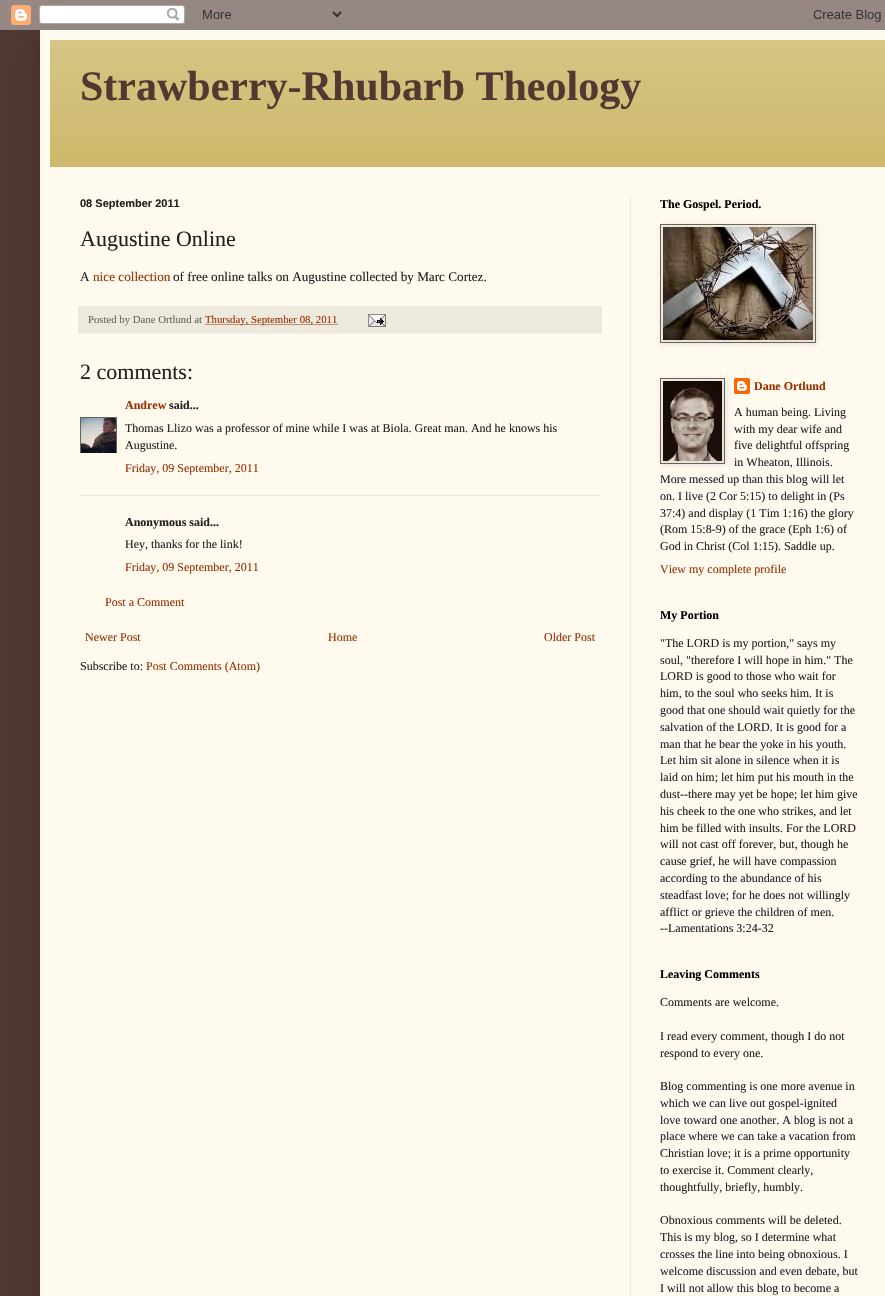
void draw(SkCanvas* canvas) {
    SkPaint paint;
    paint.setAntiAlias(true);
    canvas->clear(0xFF513831);
    paint.setColor(0x26000000);
    paint.setMaskFilter(SkMaskFilter::MakeBlur(kNormal_SkBlurStyle, 20));
    canvas->drawRect(SkRect::MakeXYWH(40, 30, 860, 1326), paint);
    paint.setMaskFilter(nullptr);
    canvas->drawImageRect(SkImages::DeferredFromEncodedData(SkData::MakeFromFileName("img1.png")), SkRect::MakeXYWH(0, 0, 885, 30), SkSamplingOptions());
    paint.setColor(0xFFFFF9EE);
    canvas->drawRect(SkRect::MakeXYWH(40, 30, 845, 1266), paint);
    paint.setColor(0xFFCCB666);
    canvas->drawRect(SkRect::MakeXYWH(50, 40, 835, 127), paint);
    canvas->drawImageRect(SkImages::DeferredFromEncodedData(SkData::MakeFromFileName("img2.png")), SkRect::MakeXYWH(50, 40, 835, 127), SkSamplingOptions());
    SkFont font1(fontMgr->matchFamilyStyle("Liberation Serif", SkFontStyle::Bold()), 42);
    font1.setSubpixel(true);
    paint.setColor(0xFF513831);
    canvas->drawString("Strawberry-Rhubarb Theology", 80, 100, font1, paint);
    paint.setColor(0xFFEEE5DD);
    canvas->drawRect(SkRect::MakeXYWH(630, 197, 1, 1099), paint);
    SkFont font2(fontMgr->matchFamilyStyle("Liberation Sans", SkFontStyle::Bold()), 11);
    font2.setSubpixel(true);
    paint.setColor(0xFF222222);
    canvas->drawString("08 September 2011", 80, 207, font2, paint);
    SkFont font3(fontMgr->matchFamilyStyle("Liberation Serif", SkFontStyle::Normal()), 22);
    font3.setSubpixel(true);
    canvas->drawString("Augustine Online", 80, 246, font3, paint);
    SkFont font4(fontMgr->matchFamilyStyle("Liberation Serif", SkFontStyle::Normal()), 13.2f);
    font4.setSubpixel(true);
    canvas->drawString("A", 80, 281, font4, paint);
    paint.setColor(0xFF993200);
    canvas->drawString("nice collection", 93, 281, font4, paint);
    paint.setColor(0xFF222222);
    canvas->drawString("of free online talks on Augustine collected by Marc Cortez.", 173, 281, font4, paint);
    paint.setColor(0xFFEEE9DD);
    canvas->drawRect(SkRect::MakeXYWH(78, 306, 524, 27), paint);
    paint.setColor(0xFFEEEEEE);
    canvas->drawRect(SkRect::MakeXYWH(78, 333, 524, 1), paint);
    SkFont font5(fontMgr->matchFamilyStyle("Liberation Serif", SkFontStyle::Normal()), 10.75f);
    font5.setSubpixel(true);
    paint.setColor(0xFF666555);
    canvas->drawString("Posted by Dane Ortlund at", 88, 323, font5, paint);
    paint.setStyle(SkPaint::kStroke_Style);
    paint.setStrokeWidth(1);
    paint.setColor(0xFF993200);
    paint.setPathEffect(SkDashPathEffect::Make({{1, 1}}, 0));
    canvas->drawPath(SkPathBuilder().moveTo(205.5f, 324.5f).lineTo(338, 324.5f).detach(), paint);
    paint.setPathEffect(nullptr);
    paint.setStyle(SkPaint::kFill_Style);
    canvas->drawString("Thursday, September 08, 2011", 205, 323, font5, paint);
    canvas->drawImageRect(SkImages::DeferredFromEncodedData(SkData::MakeFromFileName("img3.png")), SkRect::MakeXYWH(368, 314, 18, 13), SkSamplingOptions());
    paint.setColor(0xFF222222);
    canvas->drawString("2 comments:", 80, 379, font3, paint);
    SkFont font6(fontMgr->matchFamilyStyle("Liberation Serif", SkFontStyle::Bold()), 12);
    font6.setSubpixel(true);
    paint.setColor(0xFF993200);
    canvas->drawString("Andrew", 125, 409, font6, paint);
    paint.setColor(0xFF222222);
    canvas->drawString("said...", 169, 409, font6, paint);
    canvas->save();
    canvas->clipRect(SkRect::MakeXYWH(80, 417, 37, 36));
    paint.setStyle(SkPaint::kStroke_Style);
    paint.setColor(0xFF666555);
    canvas->drawRect(SkRect::MakeXYWH(80.5f, 417.5f, 36, 36), paint);
    canvas->restore();
    canvas->drawImageRect(SkImages::DeferredFromEncodedData(SkData::MakeFromFileName("img4.png")), SkRect::MakeXYWH(81, 418, 35, 35), SkSamplingOptions());
    SkFont font7(fontMgr->matchFamilyStyle("Liberation Serif", SkFontStyle::Normal()), 12);
    font7.setSubpixel(true);
    paint.setStyle(SkPaint::kFill_Style);
    paint.setColor(0xFF222222);
    canvas->drawString("Thomas Llizo was a professor of mine while I was at Biola. Great man. And he knows his", 125, 432, font7, paint);
    canvas->drawString("Augustine.", 125, 449, font7, paint);
    paint.setColor(0xFF993200);
    canvas->drawString("Friday, 09 September, 2011", 125, 472, font7, paint);
    paint.setColor(0xFFEEE5DD);
    canvas->drawRect(SkRect::MakeXYWH(80, 495, 520, 1), paint);
    paint.setColor(0xFF222222);
    canvas->drawString("Anonymous said...", 125, 526, font6, paint);
    canvas->drawString("Hey, thanks for the link!", 125, 548, font7, paint);
    paint.setColor(0xFF993200);
    canvas->drawString("Friday, 09 September, 2011", 125, 571, font7, paint);
    canvas->drawString("Post a Comment", 105, 606, font7, paint);
    canvas->drawString("Newer Post", 85, 641, font7, paint);
    canvas->drawString("Home", 328, 641, font7, paint);
    canvas->drawString("Older Post", 544, 641, font7, paint);
    paint.setColor(0xFF222222);
    canvas->drawString("Subscribe to:", 80, 670, font7, paint);
    paint.setColor(0xFF993200);
    canvas->drawString("Post Comments (Atom)", 146, 670, font7, paint);
    paint.setColor(0xFF000000);
    canvas->drawString("The Gospel. Period.", 660, 208, font6, paint);
    paint.setColor(0x1A000000);
    paint.setMaskFilter(SkMaskFilter::MakeBlur(kNormal_SkBlurStyle, 2.5f));
    canvas->drawRect(SkRect::MakeXYWH(661, 225, 156, 119), paint);
    paint.setMaskFilter(nullptr);
    paint.setStyle(SkPaint::kStroke_Style);
    paint.setColor(0xFF666555);
    canvas->drawRect(SkRect::MakeXYWH(660.5f, 224.5f, 155, 118), paint);
    canvas->drawImageRect(SkImages::DeferredFromEncodedData(SkData::MakeFromFileName("img5.png")), SkRect::MakeXYWH(663, 227, 150, 113), SkSamplingOptions());
    canvas->drawImageRect(SkImages::DeferredFromEncodedData(SkData::MakeFromFileName("img7.png")), SkRect::MakeXYWH(734, 378, 16, 16), SkSamplingOptions());
    paint.setStyle(SkPaint::kFill_Style);
    paint.setColor(0x1A000000);
    paint.setMaskFilter(SkMaskFilter::MakeBlur(kNormal_SkBlurStyle, 2.5f));
    canvas->drawRect(SkRect::MakeXYWH(661, 379, 65, 86), paint);
    paint.setMaskFilter(nullptr);
    paint.setStyle(SkPaint::kStroke_Style);
    paint.setColor(0xFF666555);
    canvas->drawRect(SkRect::MakeXYWH(660.5f, 378.5f, 64, 85), paint);
    canvas->drawImageRect(SkImages::DeferredFromEncodedData(SkData::MakeFromFileName("img6.png")), SkRect::MakeXYWH(663, 381, 59, 80), SkSamplingOptions());
    paint.setStyle(SkPaint::kFill_Style);
    paint.setColor(0xFF993200);
    canvas->drawString("Dane Ortlund", 754, 390, font6, paint);
    paint.setColor(0xFF222222);
    canvas->drawString("A human being. Living", 734, 416, font7, paint);
    canvas->drawString("with my dear wife and", 734, 433, font7, paint);
    canvas->drawString("five delightful offspring", 734, 449, font7, paint);
    canvas->drawString("in Wheaton, Illinois.", 734, 466, font7, paint);
    canvas->drawString("More messed up than this blog will let", 660, 483, font7, paint);
    canvas->drawString("on. I live (2 Cor 5:15) to delight in (Ps", 660, 500, font7, paint);
    canvas->drawString("37:4) and display (1 Tim 1:16) the glory", 660, 517, font7, paint);
    canvas->drawString("(Rom 15:8-9) of the grace (Eph 1:6) of", 660, 533, font7, paint);
    canvas->drawString("God in Christ (Col 1:15). Saddle up.", 660, 550, font7, paint);
    paint.setColor(0xFF993200);
    canvas->drawString("View my complete profile", 660, 573, font7, paint);
    paint.setColor(0xFF000000);
    canvas->drawString("My Portion", 660, 619, font6, paint);
    paint.setColor(0xFF222222);
    canvas->drawString("\"The LORD is my portion,\" says my", 660, 647, font7, paint);
    canvas->drawString("soul, \"therefore I will hope in him.\" The", 660, 664, font7, paint);
    canvas->drawString("LORD is good to those who wait for", 660, 680, font7, paint);
    canvas->drawString("him, to the soul who seeks him. It is", 660, 697, font7, paint);
    canvas->drawString("good that one should wait quietly for the", 660, 714, font7, paint);
    canvas->drawString("salvation of the LORD. It is good for a", 660, 731, font7, paint);
    canvas->drawString("man that he bear the yoke in his youth.", 660, 748, font7, paint);
    canvas->drawString("Let him sit alone in silence when it is", 660, 764, font7, paint);
    canvas->drawString("laid on him; let him put his mouth in the", 660, 781, font7, paint);
    canvas->drawString("dust--there may yet be hope; let him give", 660, 798, font7, paint);
    canvas->drawString("his cheek to the one who strikes, and let", 660, 815, font7, paint);
    canvas->drawString("him be filled with insults. For the LORD", 660, 832, font7, paint);
    canvas->drawString("will not cast off forever, but, though he", 660, 848, font7, paint);
    canvas->drawString("cause grief, he will have compassion", 660, 865, font7, paint);
    canvas->drawString("according to the abundance of his", 660, 882, font7, paint);
    canvas->drawString("steadfast love; for he does not willingly", 660, 899, font7, paint);
    canvas->drawString("afflict or grieve the children of men.", 660, 916, font7, paint);
    canvas->drawString("--Lamentations 3:24-32", 660, 932, font7, paint);
    paint.setColor(0xFF000000);
    canvas->drawString("Leaving Comments", 660, 978, font6, paint);
    paint.setColor(0xFF222222);
    canvas->drawString("Comments are welcome.", 660, 1006, font7, paint);
    canvas->drawString("I read every comment, though I do not", 660, 1040, font7, paint);
    canvas->drawString("respond to every one.", 660, 1057, font7, paint);
    canvas->drawString("Blog commenting is one more avenue in", 660, 1090, font7, paint);
    canvas->drawString("which we can live out gospel-ignited", 660, 1107, font7, paint);
    canvas->drawString("love toward one another. A blog is not a", 660, 1124, font7, paint);
    canvas->drawString("place where we can take a vacation from", 660, 1140, font7, paint);
    canvas->drawString("Christian love; it is a prime opportunity", 660, 1157, font7, paint);
    canvas->drawString("to exercise it. Comment clearly,", 660, 1174, font7, paint);
    canvas->drawString("thoughtfully, briefly, humbly.", 660, 1191, font7, paint);
    canvas->drawString("Obnoxious comments will be deleted.", 660, 1224, font7, paint);
    canvas->drawString("This is my blog, so I determine what", 660, 1241, font7, paint);
    canvas->drawString("crosses the line into being obnoxious. I", 660, 1258, font7, paint);
    canvas->drawString("welcome discussion and even debate, but", 660, 1275, font7, paint);
    canvas->drawString("I will not allow this blog to become a", 660, 1292, font7, paint);
}
